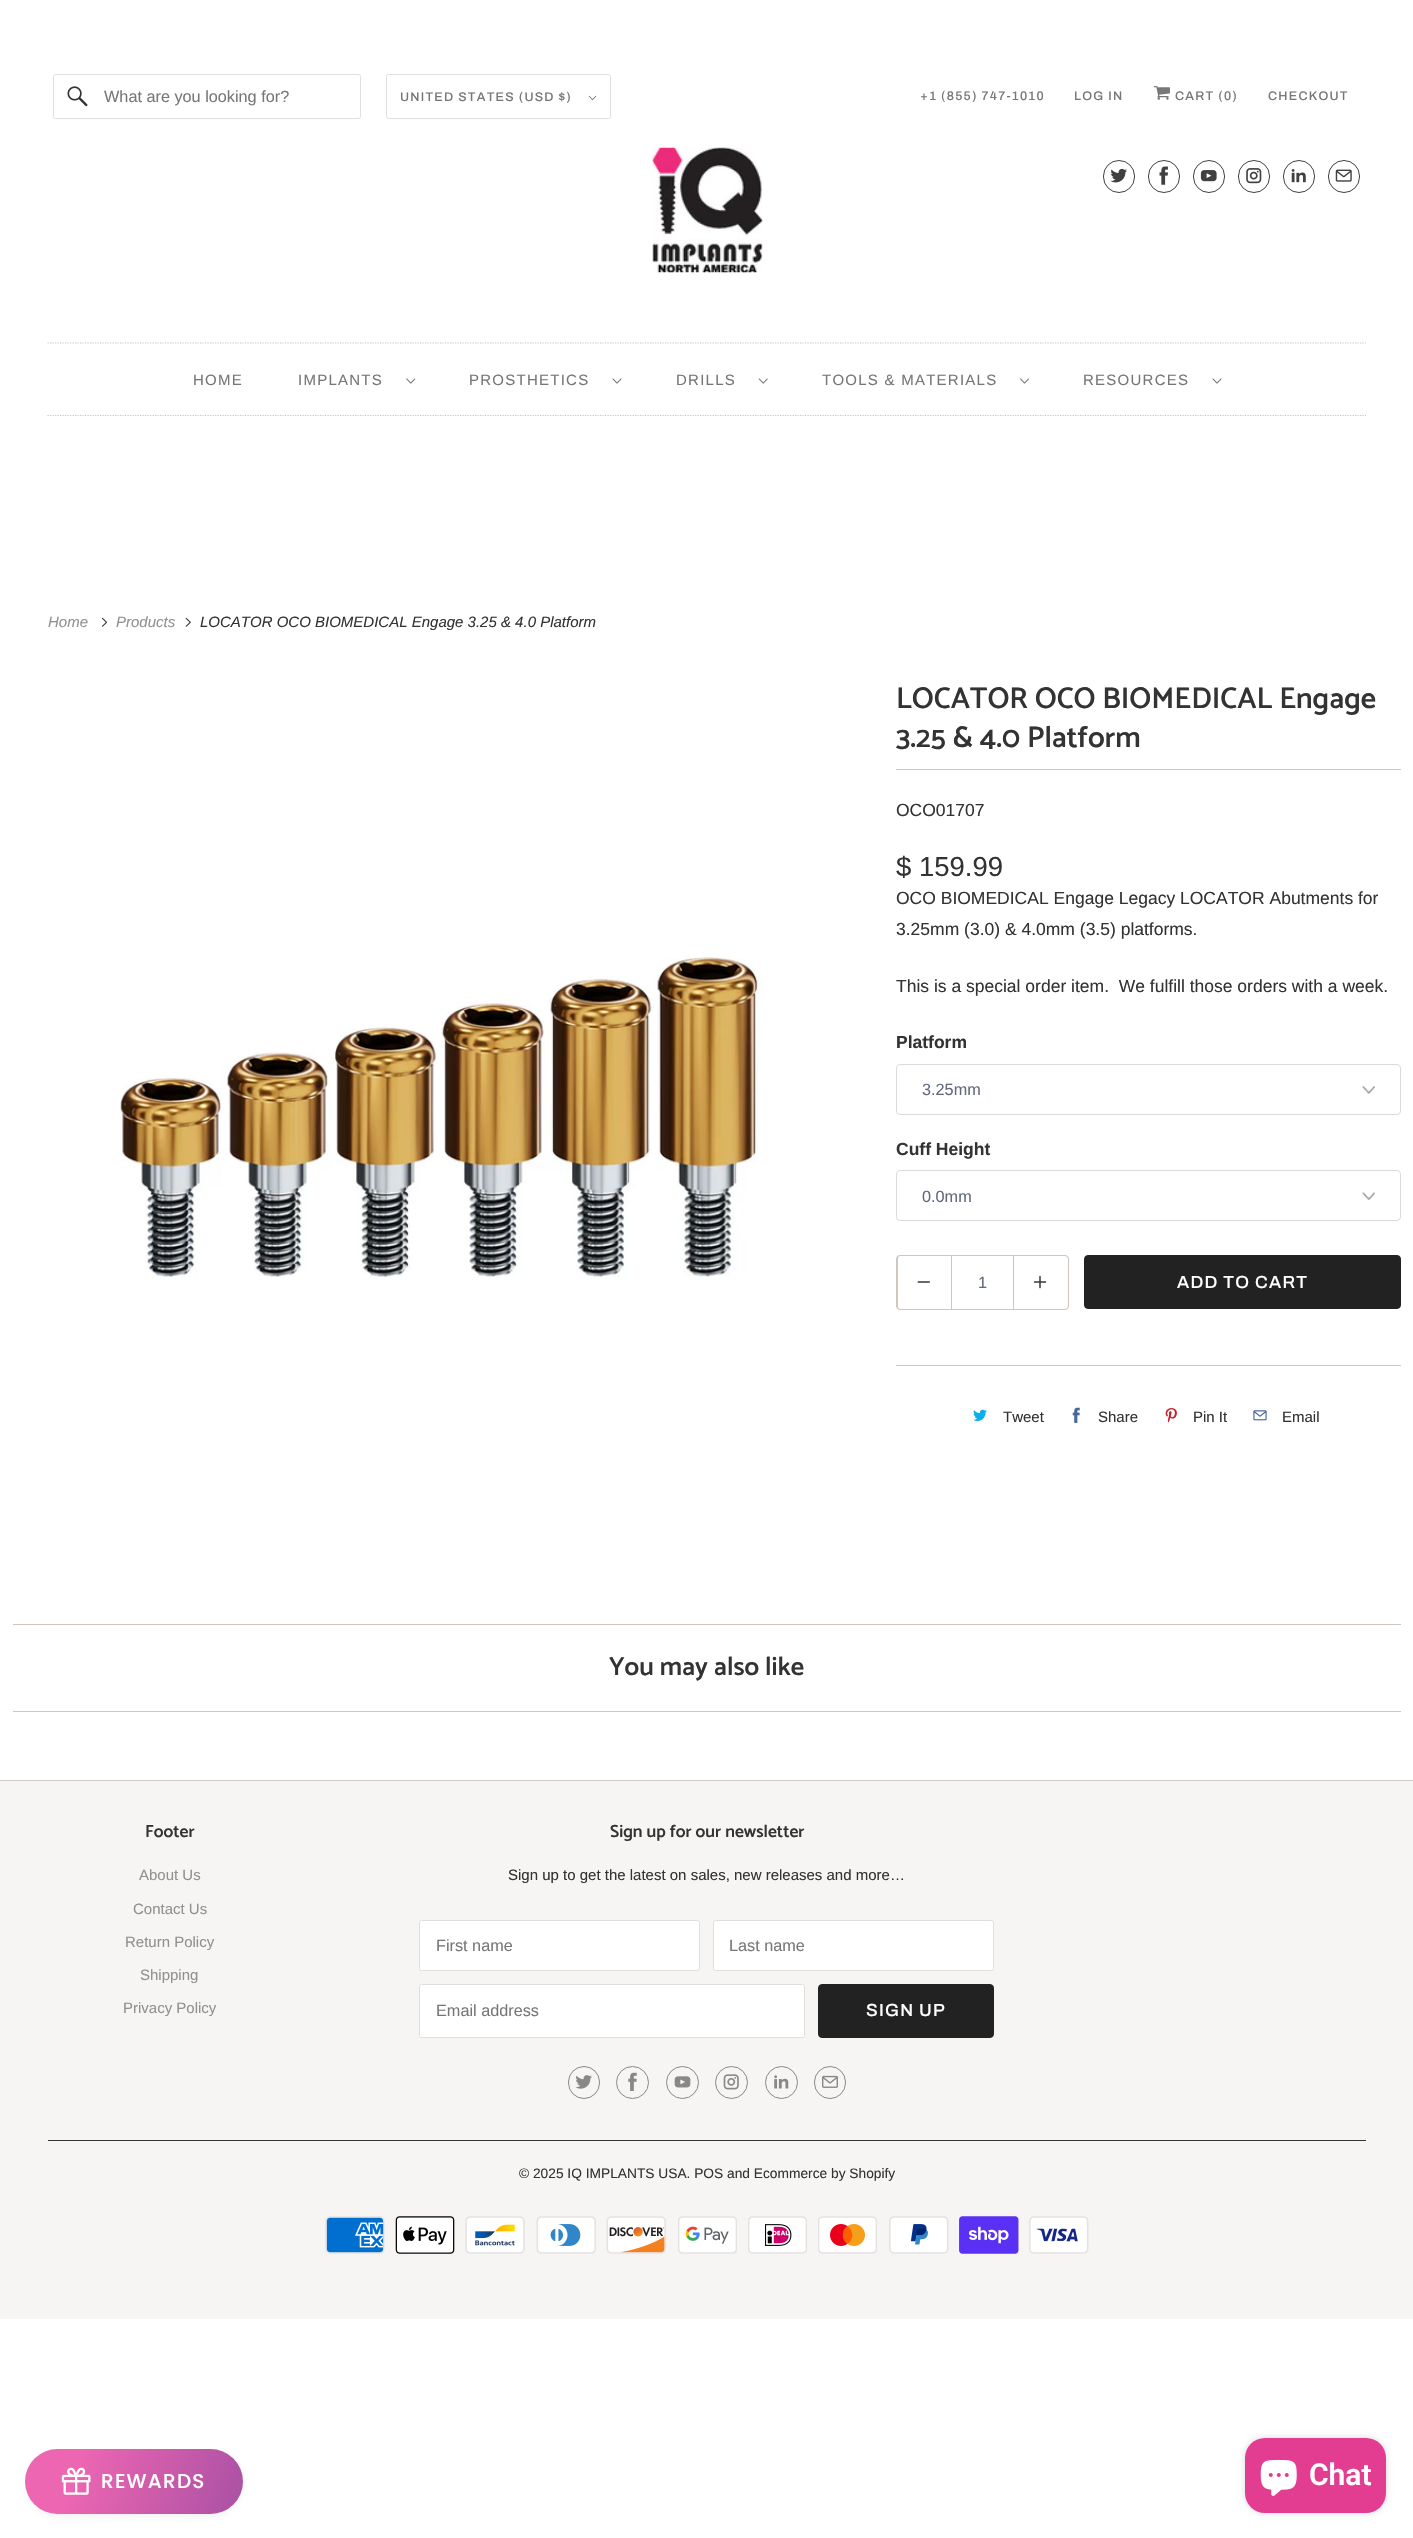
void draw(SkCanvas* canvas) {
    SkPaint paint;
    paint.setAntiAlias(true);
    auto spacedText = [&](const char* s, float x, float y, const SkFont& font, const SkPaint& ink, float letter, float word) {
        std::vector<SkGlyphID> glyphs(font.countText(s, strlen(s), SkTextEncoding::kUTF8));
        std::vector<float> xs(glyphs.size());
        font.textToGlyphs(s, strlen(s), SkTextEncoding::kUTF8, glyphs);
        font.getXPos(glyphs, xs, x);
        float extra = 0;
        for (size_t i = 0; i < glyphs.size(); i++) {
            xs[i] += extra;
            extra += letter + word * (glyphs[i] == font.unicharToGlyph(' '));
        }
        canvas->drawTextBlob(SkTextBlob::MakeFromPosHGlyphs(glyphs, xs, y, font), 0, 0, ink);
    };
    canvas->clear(0xFFFFFFFF);
    paint.setStyle(SkPaint::kStroke_Style);
    paint.setStrokeWidth(1);
    paint.setColor(0xFFDFDFDF);
    canvas->drawRoundRect(SkRect::MakeXYWH(53.5f, 74.5f, 307, 44), 2, 2, paint);
    canvas->drawImageRect(SkImages::DeferredFromEncodedData(SkData::MakeFromFileName("img1.png")), SkRect::MakeXYWH(67, 86, 21, 21), SkSamplingOptions());
    SkFont font1(fontMgr->matchFamilyStyle("Arimo", SkFontStyle::Normal()), 16.25f);
    font1.setSubpixel(true);
    paint.setStyle(SkPaint::kFill_Style);
    paint.setColor(0xFF777777);
    canvas->drawString("What are you looking for?", 104, 102, font1, paint);
    paint.setStyle(SkPaint::kStroke_Style);
    paint.setColor(0xFFDFDFDF);
    canvas->drawRoundRect(SkRect::MakeXYWH(386.5f, 74.5f, 224, 44), 2, 2, paint);
    SkFont font2(fontMgr->matchFamilyStyle("Archivo", SkFontStyle(500, SkFontStyle::kNormal_Width, SkFontStyle::kUpright_Slant)), 12.5f);
    font2.setSubpixel(true);
    paint.setStyle(SkPaint::kFill_Style);
    paint.setColor(0xFF777777);
    spacedText("UNITED STATES (USD $)", 400, 101, font2, paint, 1.25f, 0);
    canvas->drawImageRect(SkImages::DeferredFromEncodedData(SkData::MakeFromFileName("img2.png")), SkRect::MakeXYWH(588, 95, 9, 6), SkSamplingOptions());
    spacedText("+1 (855) 747-1010", 920, 100, font2, paint, 1.25f, 0);
    spacedText("LOG IN", 1074, 100, font2, paint, 1.25f, 0);
    canvas->drawImageRect(SkImages::DeferredFromEncodedData(SkData::MakeFromFileName("img3.png")), SkRect::MakeXYWH(1153, 86, 17, 14), SkSamplingOptions());
    spacedText("CART (0)", 1175, 100, font2, paint, 1.25f, 0);
    spacedText("CHECKOUT", 1268, 100, font2, paint, 1.25f, 0);
    canvas->drawImageRect(SkImages::DeferredFromEncodedData(SkData::MakeFromFileName("img4.png")), SkRect::MakeXYWH(652, 147, 111, 126), SkSamplingOptions());
    paint.setStyle(SkPaint::kStroke_Style);
    paint.setColor(0xFF404040);
    canvas->drawRoundRect(SkRect::MakeXYWH(1103.5f, 160.5f, 31, 32), 15.5f, 15.5f, paint);
    canvas->drawImageRect(SkImages::DeferredFromEncodedData(SkData::MakeFromFileName("img5.png")), SkRect::MakeXYWH(1110, 168, 17, 15), SkSamplingOptions());
    canvas->drawRoundRect(SkRect::MakeXYWH(1148.5f, 160.5f, 31, 32), 15.5f, 15.5f, paint);
    canvas->drawImageRect(SkImages::DeferredFromEncodedData(SkData::MakeFromFileName("img6.png")), SkRect::MakeXYWH(1159, 166, 9, 19), SkSamplingOptions());
    canvas->drawRoundRect(SkRect::MakeXYWH(1193.5f, 160.5f, 31, 32), 15.5f, 15.5f, paint);
    canvas->drawImageRect(SkImages::DeferredFromEncodedData(SkData::MakeFromFileName("img7.png")), SkRect::MakeXYWH(1200, 170, 17, 12), SkSamplingOptions());
    canvas->drawRoundRect(SkRect::MakeXYWH(1238.5f, 160.5f, 31, 32), 15.5f, 15.5f, paint);
    canvas->drawImageRect(SkImages::DeferredFromEncodedData(SkData::MakeFromFileName("img8.png")), SkRect::MakeXYWH(1246, 168, 16, 16), SkSamplingOptions());
    canvas->drawRoundRect(SkRect::MakeXYWH(1283.5f, 160.5f, 31, 32), 15.5f, 15.5f, paint);
    canvas->drawImageRect(SkImages::DeferredFromEncodedData(SkData::MakeFromFileName("img9.png")), SkRect::MakeXYWH(1291, 169, 15, 14), SkSamplingOptions());
    canvas->drawRoundRect(SkRect::MakeXYWH(1328.5f, 160.5f, 31, 32), 15.5f, 15.5f, paint);
    canvas->drawImageRect(SkImages::DeferredFromEncodedData(SkData::MakeFromFileName("img10.png")), SkRect::MakeXYWH(1335, 169, 17, 13), SkSamplingOptions());
    paint.setStrokeWidth(1.2f);
    paint.setColor(0xFFCEC6BF);
    paint.setPathEffect(SkDashPathEffect::Make({{1.25f, 1.25f}}, 0));
    canvas->drawPath(SkPathBuilder().moveTo(47.5f, 343).lineTo(1366, 343).detach(), paint);
    paint.setPathEffect(nullptr);
    paint.setPathEffect(SkDashPathEffect::Make({{1.25f, 1.25f}}, 0));
    canvas->drawPath(SkPathBuilder().moveTo(47.5f, 415.5f).lineTo(1366, 415.5f).detach(), paint);
    paint.setPathEffect(nullptr);
    SkFont font3(fontMgr->matchFamilyStyle("Arimo", SkFontStyle::Normal()), 15);
    font3.setSubpixel(true);
    paint.setStyle(SkPaint::kFill_Style);
    paint.setColor(0xFF777777);
    spacedText("HOME", 193, 385, font3, paint, 1.25f, 0);
    spacedText("IMPLANTS", 298, 385, font3, paint, 1.25f, 0);
    canvas->drawImageRect(SkImages::DeferredFromEncodedData(SkData::MakeFromFileName("img11.png")), SkRect::MakeXYWH(406, 378, 10, 6), SkSamplingOptions());
    spacedText("PROSTHETICS", 469, 385, font3, paint, 1.25f, 0);
    canvas->drawImageRect(SkImages::DeferredFromEncodedData(SkData::MakeFromFileName("img12.png")), SkRect::MakeXYWH(612, 378, 10, 6), SkSamplingOptions());
    spacedText("DRILLS", 676, 385, font3, paint, 1.25f, 0);
    canvas->drawImageRect(SkImages::DeferredFromEncodedData(SkData::MakeFromFileName("img13.png")), SkRect::MakeXYWH(758, 378, 10, 6), SkSamplingOptions());
    spacedText("TOOLS & MATERIALS", 822, 385, font3, paint, 1.25f, 0);
    canvas->drawImageRect(SkImages::DeferredFromEncodedData(SkData::MakeFromFileName("img14.png")), SkRect::MakeXYWH(1020, 378, 9, 6), SkSamplingOptions());
    spacedText("RESOURCES", 1083, 385, font3, paint, 1.25f, 0);
    canvas->drawImageRect(SkImages::DeferredFromEncodedData(SkData::MakeFromFileName("img12.png")), SkRect::MakeXYWH(1212, 378, 10, 6), SkSamplingOptions());
    SkFont font4(fontMgr->matchFamilyStyle("Arimo", SkFontStyle::Italic()), 15);
    font4.setSubpixel(true);
    paint.setColor(0xFF919191);
    canvas->drawString("Home", 48, 627, font4, paint);
    canvas->drawImageRect(SkImages::DeferredFromEncodedData(SkData::MakeFromFileName("img15.png")), SkRect::MakeXYWH(101, 617, 7, 10), SkSamplingOptions());
    canvas->drawString("Products", 116, 627, font4, paint);
    canvas->drawImageRect(SkImages::DeferredFromEncodedData(SkData::MakeFromFileName("img16.png")), SkRect::MakeXYWH(185, 617, 6, 10), SkSamplingOptions());
    paint.setColor(0xFF333333);
    canvas->drawString("LOCATOR OCO BIOMEDICAL Engage 3.25 & 4.0 Platform", 200, 627, font4, paint);
    canvas->drawImageRect(SkImages::DeferredFromEncodedData(SkData::MakeFromFileName("img17.png")), SkRect::MakeXYWH(120, 956, 644, 322), SkSamplingOptions());
    paint.setColor(0xFFCEC6BF);
    canvas->drawRect(SkRect::MakeXYWH(896, 769, 505, 1), paint);
    SkFont font5(fontMgr->matchFamilyStyle("Catamaran", SkFontStyle(600, SkFontStyle::kNormal_Width, SkFontStyle::kUpright_Slant)), 30);
    font5.setSubpixel(true);
    paint.setColor(0xFF333333);
    canvas->drawString("LOCATOR OCO BIOMEDICAL Engage", 896, 708, font5, paint);
    canvas->drawString("3.25 & 4.0 Platform", 896, 747, font5, paint);
    SkFont font6(fontMgr->matchFamilyStyle("Arimo", SkFontStyle::Normal()), 17.5f);
    font6.setSubpixel(true);
    canvas->drawString("OCO01707", 896, 816, font6, paint);
    SkFont font7(fontMgr->matchFamilyStyle("Arimo", SkFontStyle::Normal()), 27.5f);
    font7.setSubpixel(true);
    canvas->drawString("$ 159.99", 896, 876, font7, paint);
    canvas->drawString("OCO BIOMEDICAL Engage Legacy LOCATOR Abutments for", 896, 904, font6, paint);
    canvas->drawString("3.25mm (3.0) & 4.0mm (3.5) platforms.", 896, 935, font6, paint);
    canvas->drawString("This is a special order item.  We fulfill those orders with a week.", 896, 992, font6, paint);
    SkFont font8(fontMgr->matchFamilyStyle("Arimo", SkFontStyle::Bold()), 17.5f);
    font8.setSubpixel(true);
    canvas->drawString("Platform", 896, 1048, font8, paint);
    canvas->drawImageRect(SkImages::DeferredFromEncodedData(SkData::MakeFromFileName("img18.png")), SkRect::MakeXYWH(1362, 1086, 13, 8), SkSamplingOptions());
    paint.setStyle(SkPaint::kStroke_Style);
    paint.setStrokeWidth(1);
    paint.setColor(0xFFD9DBDC);
    canvas->drawRoundRect(SkRect::MakeXYWH(896.5f, 1064.5f, 504, 50), 3.5f, 3.5f, paint);
    SkFont font9(fontMgr->matchFamilyStyle("Liberation Sans", SkFontStyle::Normal()), 16.25f);
    font9.setSubpixel(true);
    paint.setStyle(SkPaint::kFill_Style);
    paint.setColor(0xFF5F6A7D);
    canvas->drawString("3.25mm", 922, 1095, font9, paint);
    paint.setColor(0xFF333333);
    canvas->drawString("Cuff Height", 896, 1155, font8, paint);
    canvas->drawImageRect(SkImages::DeferredFromEncodedData(SkData::MakeFromFileName("img19.png")), SkRect::MakeXYWH(1362, 1192, 13, 8), SkSamplingOptions());
    paint.setStyle(SkPaint::kStroke_Style);
    paint.setColor(0xFFD9DBDC);
    canvas->drawRoundRect(SkRect::MakeXYWH(896.5f, 1170.5f, 504, 50), 3.5f, 3.5f, paint);
    paint.setStyle(SkPaint::kFill_Style);
    paint.setColor(0xFF5F6A7D);
    canvas->drawString("0.0mm", 922, 1202, font9, paint);
    paint.setColor(0xFFCEC6BF);
    canvas->drawPath(SkPathBuilder(SkPathFillType::kEvenOdd).moveTo(900, 1255).lineTo(951, 1255).lineTo(951, 1310).lineTo(900, 1310).cubicTo(898, 1310, 896, 1308, 896, 1306).lineTo(896, 1259).cubicTo(896, 1257, 898, 1255, 900, 1255).close().moveTo(900, 1256).lineTo(951, 1256).lineTo(951, 1309).lineTo(900, 1309).cubicTo(899, 1309, 898, 1308, 898, 1306).lineTo(898, 1259).cubicTo(898, 1257, 899, 1256, 900, 1256).close().detach(), paint);
    canvas->drawImageRect(SkImages::DeferredFromEncodedData(SkData::MakeFromFileName("img20.png")), SkRect::MakeXYWH(917, 1281, 13, 2), SkSamplingOptions());
    paint.setStyle(SkPaint::kStroke_Style);
    canvas->drawRect(SkRect::MakeXYWH(951.5f, 1255.5f, 62, 54), paint);
    paint.setStyle(SkPaint::kFill_Style);
    paint.setColor(0xFF5F6A7D);
    canvas->drawString("1", 978, 1288, font9, paint);
    paint.setColor(0xFFCEC6BF);
    canvas->drawPath(SkPathBuilder(SkPathFillType::kEvenOdd).moveTo(1014, 1255).lineTo(1065, 1255).cubicTo(1067, 1255, 1069, 1257, 1069, 1259).lineTo(1069, 1306).cubicTo(1069, 1308, 1067, 1310, 1065, 1310).lineTo(1014, 1310).close().moveTo(1014, 1256).lineTo(1065, 1256).cubicTo(1066, 1256, 1068, 1257, 1068, 1259).lineTo(1068, 1306).cubicTo(1068, 1308, 1066, 1309, 1065, 1309).lineTo(1014, 1309).close().detach(), paint);
    canvas->drawImageRect(SkImages::DeferredFromEncodedData(SkData::MakeFromFileName("img21.png")), SkRect::MakeXYWH(1033, 1275, 14, 14), SkSamplingOptions());
    paint.setColor(0xFF222222);
    canvas->drawRoundRect(SkRect::MakeXYWH(1084.5f, 1255.5f, 316, 53), 3.5f, 3.5f, paint);
    paint.setStyle(SkPaint::kStroke_Style);
    canvas->drawRoundRect(SkRect::MakeXYWH(1084.5f, 1255.5f, 316, 53), 3.5f, 3.5f, paint);
    SkFont font10(fontMgr->matchFamilyStyle("Archivo", SkFontStyle(500, SkFontStyle::kNormal_Width, SkFontStyle::kUpright_Slant)), 17.5f);
    font10.setSubpixel(true);
    paint.setStyle(SkPaint::kFill_Style);
    paint.setColor(0xFFFFFFFF);
    spacedText("ADD TO CART", 1177, 1288, font10, paint, 1.25f, 0);
    paint.setColor(0xFFCEC6BF);
    canvas->drawRect(SkRect::MakeXYWH(896, 1365, 505, 1), paint);
    canvas->drawImageRect(SkImages::DeferredFromEncodedData(SkData::MakeFromFileName("img22.png")), SkRect::MakeXYWH(973, 1409, 14, 12), SkSamplingOptions());
    paint.setColor(0xFF333333);
    canvas->drawString("Tweet", 1003, 1422, font3, paint);
    canvas->drawImageRect(SkImages::DeferredFromEncodedData(SkData::MakeFromFileName("img23.png")), SkRect::MakeXYWH(1072, 1407, 8, 16), SkSamplingOptions());
    canvas->drawString("Share", 1098, 1422, font3, paint);
    canvas->drawImageRect(SkImages::DeferredFromEncodedData(SkData::MakeFromFileName("img24.png")), SkRect::MakeXYWH(1165, 1408, 12, 15), SkSamplingOptions());
    canvas->drawString("Pin It", 1193, 1422, font3, paint);
    canvas->drawImageRect(SkImages::DeferredFromEncodedData(SkData::MakeFromFileName("img25.png")), SkRect::MakeXYWH(1253, 1410, 14, 11), SkSamplingOptions());
    canvas->drawString("Email", 1282, 1422, font3, paint);
    paint.setColor(0xFFCEC6BF);
    canvas->drawRect(SkRect::MakeXYWH(13, 1624, 1388, 1), paint);
    canvas->drawRect(SkRect::MakeXYWH(13, 1711, 1388, 1), paint);
    SkFont font11(fontMgr->matchFamilyStyle("Catamaran", SkFontStyle(600, SkFontStyle::kNormal_Width, SkFontStyle::kUpright_Slant)), 26.25f);
    font11.setSubpixel(true);
    paint.setColor(0xFF333333);
    canvas->drawString("You may also like", 609, 1675, font11, paint);
    paint.setColor(0xFFF7F4F4);
    canvas->drawRect(SkRect::MakeXYWH(0, 1781, 1413, 538), paint);
    paint.setColor(0xFFCCCCCC);
    canvas->drawRect(SkRect::MakeXYWH(0, 1780, 1413, 1), paint);
    SkFont font12(fontMgr->matchFamilyStyle("Catamaran", SkFontStyle(600, SkFontStyle::kNormal_Width, SkFontStyle::kUpright_Slant)), 17.5f);
    font12.setSubpixel(true);
    paint.setColor(0xFF333333);
    canvas->drawString("Footer", 145, 1837, font12, paint);
    paint.setColor(0xFF919191);
    canvas->drawString("About Us", 139, 1880, font3, paint);
    canvas->drawString("Contact Us", 133, 1914, font3, paint);
    canvas->drawString("Return Policy", 125, 1947, font3, paint);
    canvas->drawString("Shipping", 140, 1980, font3, paint);
    canvas->drawString("Privacy Policy", 123, 2013, font3, paint);
    paint.setColor(0xFF333333);
    canvas->drawString("Sign up for our newsletter", 610, 1837, font12, paint);
    canvas->drawString("Sign up to get the latest on sales, new releases and more…", 508, 1880, font3, paint);
    paint.setColor(0xFFFFFFFF);
    canvas->drawRoundRect(SkRect::MakeXYWH(419.5f, 1920.5f, 280, 50), 2, 2, paint);
    paint.setStyle(SkPaint::kStroke_Style);
    paint.setColor(0xFFDFDFDF);
    canvas->drawRoundRect(SkRect::MakeXYWH(419.5f, 1920.5f, 280, 50), 2, 2, paint);
    paint.setStyle(SkPaint::kFill_Style);
    paint.setColor(0xFF777777);
    canvas->drawString("First name", 436, 1951, font9, paint);
    paint.setColor(0xFFFFFFFF);
    canvas->drawRoundRect(SkRect::MakeXYWH(713.5f, 1920.5f, 280, 50), 2, 2, paint);
    paint.setStyle(SkPaint::kStroke_Style);
    paint.setColor(0xFFDFDFDF);
    canvas->drawRoundRect(SkRect::MakeXYWH(713.5f, 1920.5f, 280, 50), 2, 2, paint);
    paint.setStyle(SkPaint::kFill_Style);
    paint.setColor(0xFF777777);
    canvas->drawString("Last name", 729, 1951, font9, paint);
    paint.setColor(0xFFFFFFFF);
    canvas->drawRoundRect(SkRect::MakeXYWH(419.5f, 1984.5f, 385, 53), 2, 2, paint);
    paint.setStyle(SkPaint::kStroke_Style);
    paint.setColor(0xFFDFDFDF);
    canvas->drawRoundRect(SkRect::MakeXYWH(419.5f, 1984.5f, 385, 53), 2, 2, paint);
    paint.setStyle(SkPaint::kFill_Style);
    paint.setColor(0xFF777777);
    canvas->drawString("Email address", 436, 2016, font9, paint);
    paint.setColor(0xFF222222);
    canvas->drawRoundRect(SkRect::MakeXYWH(818.5f, 1984.5f, 175, 53), 3.5f, 3.5f, paint);
    paint.setStyle(SkPaint::kStroke_Style);
    canvas->drawRoundRect(SkRect::MakeXYWH(818.5f, 1984.5f, 175, 53), 3.5f, 3.5f, paint);
    paint.setStyle(SkPaint::kFill_Style);
    paint.setColor(0xFFFFFFFF);
    spacedText("SIGN UP", 866, 2016, font10, paint, 1.25f, 0);
    paint.setStyle(SkPaint::kStroke_Style);
    paint.setColor(0xFF888888);
    canvas->drawRoundRect(SkRect::MakeXYWH(568.5f, 2066.5f, 31, 32), 15.5f, 15.5f, paint);
    canvas->drawImageRect(SkImages::DeferredFromEncodedData(SkData::MakeFromFileName("img26.png")), SkRect::MakeXYWH(575, 2075, 17, 14), SkSamplingOptions());
    canvas->drawCircle(632.5f, 2082.5f, 16, paint);
    canvas->drawImageRect(SkImages::DeferredFromEncodedData(SkData::MakeFromFileName("img27.png")), SkRect::MakeXYWH(628, 2072, 9, 19), SkSamplingOptions());
    canvas->drawCircle(682.5f, 2082.5f, 16, paint);
    canvas->drawImageRect(SkImages::DeferredFromEncodedData(SkData::MakeFromFileName("img28.png")), SkRect::MakeXYWH(674, 2076, 17, 12), SkSamplingOptions());
    canvas->drawCircle(731.5f, 2082.5f, 16, paint);
    canvas->drawImageRect(SkImages::DeferredFromEncodedData(SkData::MakeFromFileName("img29.png")), SkRect::MakeXYWH(723, 2074, 16, 16), SkSamplingOptions());
    canvas->drawCircle(781.5f, 2082.5f, 16, paint);
    canvas->drawImageRect(SkImages::DeferredFromEncodedData(SkData::MakeFromFileName("img30.png")), SkRect::MakeXYWH(774, 2075, 15, 14), SkSamplingOptions());
    canvas->drawRoundRect(SkRect::MakeXYWH(814.5f, 2066.5f, 31, 32), 15.5f, 15.5f, paint);
    canvas->drawImageRect(SkImages::DeferredFromEncodedData(SkData::MakeFromFileName("img31.png")), SkRect::MakeXYWH(822, 2075, 16, 13), SkSamplingOptions());
    paint.setStyle(SkPaint::kFill_Style);
    paint.setColor(0xFF333333);
    canvas->drawRect(SkRect::MakeXYWH(48, 2140, 1318, 1), paint);
    SkFont font13(fontMgr->matchFamilyStyle("Arimo", SkFontStyle::Normal()), 13.75f);
    font13.setSubpixel(true);
    canvas->drawString("© 2025 IQ IMPLANTS USA. POS and Ecommerce by Shopify", 519, 2178, font13, paint);
    canvas->drawImageRect(SkImages::DeferredFromEncodedData(SkData::MakeFromFileName("img32.png")), SkRect::MakeXYWH(325, 2216, 60, 38), SkSamplingOptions());
    canvas->drawImageRect(SkImages::DeferredFromEncodedData(SkData::MakeFromFileName("img33.png")), SkRect::MakeXYWH(395, 2216, 60, 38), SkSamplingOptions());
    canvas->drawImageRect(SkImages::DeferredFromEncodedData(SkData::MakeFromFileName("img34.png")), SkRect::MakeXYWH(465, 2216, 60, 38), SkSamplingOptions());
    canvas->drawImageRect(SkImages::DeferredFromEncodedData(SkData::MakeFromFileName("img35.png")), SkRect::MakeXYWH(536, 2216, 60, 38), SkSamplingOptions());
    canvas->drawImageRect(SkImages::DeferredFromEncodedData(SkData::MakeFromFileName("img36.png")), SkRect::MakeXYWH(606, 2216, 60, 38), SkSamplingOptions());
    canvas->drawImageRect(SkImages::DeferredFromEncodedData(SkData::MakeFromFileName("img37.png")), SkRect::MakeXYWH(678, 2216, 59, 38), SkSamplingOptions());
    canvas->drawImageRect(SkImages::DeferredFromEncodedData(SkData::MakeFromFileName("img38.png")), SkRect::MakeXYWH(748, 2216, 59, 38), SkSamplingOptions());
    canvas->drawImageRect(SkImages::DeferredFromEncodedData(SkData::MakeFromFileName("img39.png")), SkRect::MakeXYWH(818, 2216, 59, 38), SkSamplingOptions());
    canvas->drawImageRect(SkImages::DeferredFromEncodedData(SkData::MakeFromFileName("img40.png")), SkRect::MakeXYWH(889, 2216, 60, 38), SkSamplingOptions());
    canvas->drawImageRect(SkImages::DeferredFromEncodedData(SkData::MakeFromFileName("img41.png")), SkRect::MakeXYWH(959, 2216, 60, 38), SkSamplingOptions());
    canvas->drawImageRect(SkImages::DeferredFromEncodedData(SkData::MakeFromFileName("img42.png")), SkRect::MakeXYWH(1029, 2216, 60, 38), SkSamplingOptions());
    paint.setColor(0x14444444);
    paint.setMaskFilter(SkMaskFilter::MakeBlur(kNormal_SkBlurStyle, 5));
    canvas->drawRoundRect(SkRect::MakeXYWH(28, 2456, 212, 60), 30, 30, paint);
    paint.setMaskFilter(nullptr);
    {
        const SkColor colors[] = {0xFFED66B2, 0xFF86469C};
        const float stops[] = {0.17f, 1};
        const SkPoint ends[] = {{27, 2443}, {326, 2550}};
        paint.setShader(SkGradientShader::MakeLinear(ends, colors, stops, 2, SkTileMode::kClamp));
        paint.setAlpha(255);
    }
    canvas->drawRoundRect(SkRect::MakeXYWH(25, 2449, 218, 65), 32.5f, 32.5f, paint);
    canvas->drawImageRect(SkImages::DeferredFromEncodedData(SkData::MakeFromFileName("img43.png")), SkRect::MakeXYWH(61, 2467, 30, 28), SkSamplingOptions());
    SkFont font14(fontMgr->matchFamilyStyle("Poppins", SkFontStyle(500, SkFontStyle::kNormal_Width, SkFontStyle::kUpright_Slant)), 20);
    font14.setSubpixel(true);
    paint.setShader(nullptr);
    paint.setColor(0xFFFFFFFF);
    spacedText("REWARDS", 101, 2488, font14, paint, 1.25f, 0);
    paint.setColor(0x26000000);
    paint.setMaskFilter(SkMaskFilter::MakeBlur(kNormal_SkBlurStyle, 3));
    canvas->drawRoundRect(SkRect::MakeXYWH(1245, 2438, 141, 75), 20, 20, paint);
    paint.setMaskFilter(nullptr);
    paint.setColor(0xFFE23D91);
    canvas->drawRoundRect(SkRect::MakeXYWH(1245, 2438, 141, 75), 20, 20, paint);
    canvas->drawImageRect(SkImages::DeferredFromEncodedData(SkData::MakeFromFileName("img44.png")), SkRect::MakeXYWH(1260, 2460, 37, 36), SkSamplingOptions());
    SkFont font15(fontMgr->matchFamilyStyle("Roboto", SkFontStyle(600, SkFontStyle::kNormal_Width, SkFontStyle::kUpright_Slant)), 30);
    font15.setSubpixel(true);
    paint.setColor(0xFFFFFFFF);
    canvas->drawString("Chat", 1309, 2485, font15, paint);
}
